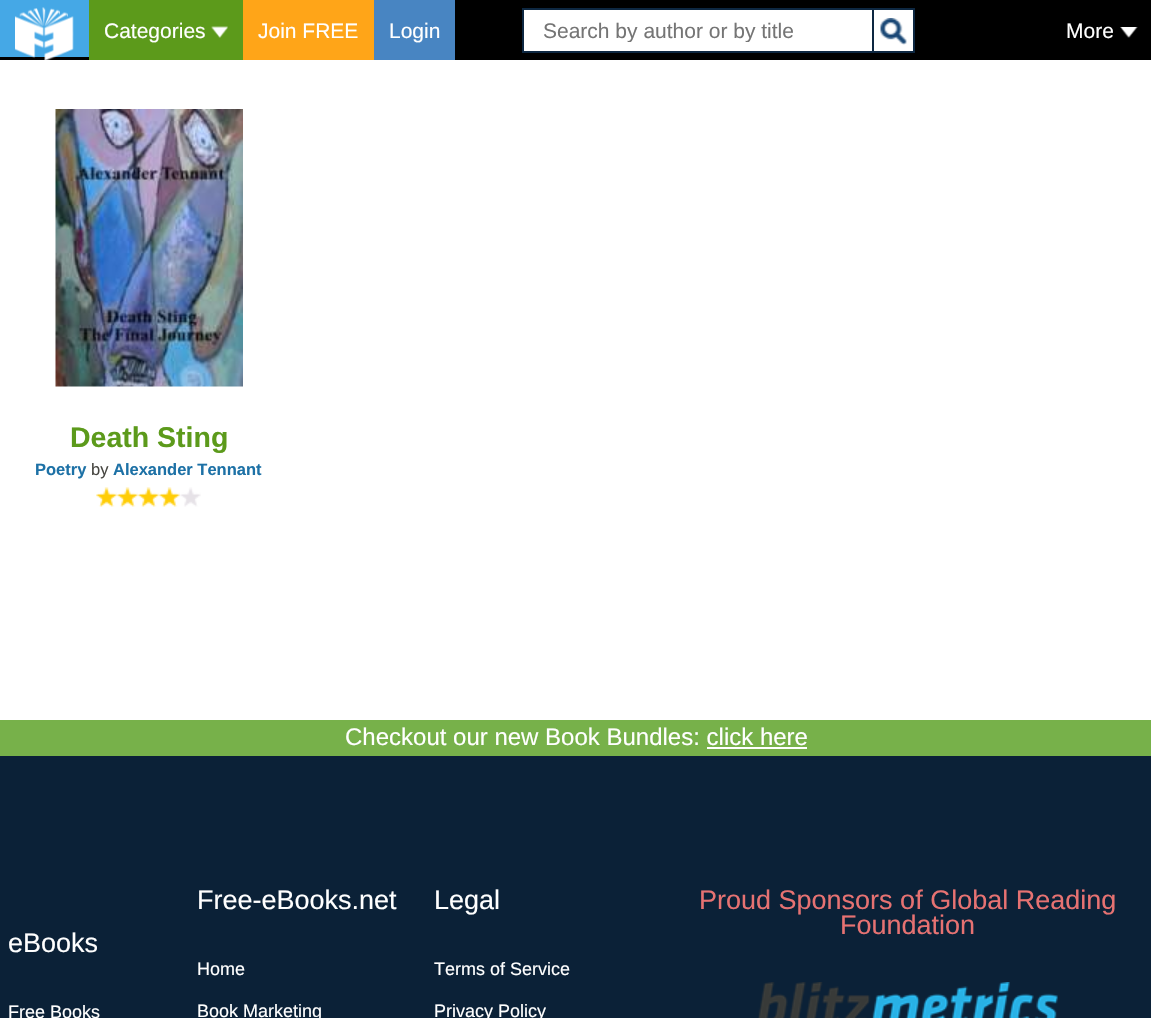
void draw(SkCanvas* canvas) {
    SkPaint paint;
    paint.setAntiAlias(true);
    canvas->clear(0xFFFFFFFF);
    paint.setColor(0xFF000000);
    canvas->drawRect(SkRect::MakeXYWH(0, 0, 1151, 60), paint);
    paint.setColor(0xFF45A8E6);
    canvas->drawRect(SkRect::MakeXYWH(0, 0, 89, 57), paint);
    canvas->drawImageRect(SkImages::DeferredFromEncodedData(SkData::MakeFromFileName("img1.png")), SkRect::MakeXYWH(15, 7, 59, 53), SkSamplingOptions());
    paint.setColor(0xFF5C9A1B);
    canvas->drawRect(SkRect::MakeXYWH(89, 0, 154, 60), paint);
    SkFont font1(fontMgr->matchFamilyStyle("Liberation Sans", SkFontStyle::Normal()), 21);
    font1.setSubpixel(true);
    paint.setColor(0xFFFFFFFF);
    canvas->drawString("Categories", 104, 38, font1, paint);
    canvas->drawImageRect(SkImages::DeferredFromEncodedData(SkData::MakeFromFileName("img2.png")), SkRect::MakeXYWH(211, 26, 17, 12), SkSamplingOptions());
    paint.setColor(0xFFFFA518);
    canvas->drawRect(SkRect::MakeXYWH(243, 0, 131, 60), paint);
    paint.setColor(0xFFFFFFFF);
    canvas->drawString("Join FREE", 258, 38, font1, paint);
    paint.setColor(0xFF4885C2);
    canvas->drawRect(SkRect::MakeXYWH(374, 0, 81, 60), paint);
    paint.setColor(0xFFFFFFFF);
    canvas->drawString("Login", 389, 38, font1, paint);
    canvas->drawRect(SkRect::MakeXYWH(524, 10, 348, 41), paint);
    paint.setColor(0xFF0D2741);
    canvas->drawRect(SkRect::MakeXYWH(522, 8, 350, 2), paint);
    canvas->drawRect(SkRect::MakeXYWH(522, 51, 350, 2), paint);
    canvas->drawRect(SkRect::MakeXYWH(522, 8, 2, 45), paint);
    canvas->save();
    canvas->clipRect(SkRect::MakeXYWH(543, 18, 309, 24));
    paint.setColor(0xFF757575);
    canvas->drawString("Search by author or by title", 543, 38, font1, paint);
    canvas->restore();
    paint.setColor(0xFFFFFFFF);
    canvas->drawRect(SkRect::MakeXYWH(873, 9, 41, 43), paint);
    paint.setStyle(SkPaint::kStroke_Style);
    paint.setStrokeWidth(2);
    paint.setColor(0xFF0D2741);
    canvas->drawRect(SkRect::MakeXYWH(873, 9, 41, 43), paint);
    canvas->drawImageRect(SkImages::DeferredFromEncodedData(SkData::MakeFromFileName("img3.png")), SkRect::MakeXYWH(880, 18, 27, 27), SkSamplingOptions());
    paint.setStyle(SkPaint::kFill_Style);
    paint.setColor(0xFFFFFFFF);
    canvas->drawString("More", 1066, 38, font1, paint);
    canvas->drawImageRect(SkImages::DeferredFromEncodedData(SkData::MakeFromFileName("img4.png")), SkRect::MakeXYWH(1120, 27, 18, 11), SkSamplingOptions());
    canvas->drawImageRect(SkImages::DeferredFromEncodedData(SkData::MakeFromFileName("img5.png")), SkRect::MakeXYWH(55, 109, 188, 278), SkSamplingOptions());
    SkFont font2(fontMgr->matchFamilyStyle("Liberation Sans", SkFontStyle::Bold()), 28.5f);
    font2.setSubpixel(true);
    paint.setColor(0xFF5C9A1B);
    canvas->drawString("Death Sting", 70, 447, font2, paint);
    SkFont font3(fontMgr->matchFamilyStyle("Liberation Sans", SkFontStyle::Bold()), 16.5f);
    font3.setSubpixel(true);
    paint.setColor(0xFF1D71A6);
    canvas->drawString("Poetry", 35, 475, font3, paint);
    SkFont font4(fontMgr->matchFamilyStyle("Liberation Sans", SkFontStyle::Normal()), 16.5f);
    font4.setSubpixel(true);
    paint.setColor(0xFF474641);
    canvas->drawString("by", 91, 475, font4, paint);
    paint.setColor(0xFF1D71A6);
    canvas->drawString("Alexander Tennant", 113, 475, font3, paint);
    canvas->drawImageRect(SkImages::DeferredFromEncodedData(SkData::MakeFromFileName("img6.png")), SkRect::MakeXYWH(96, 487, 21, 20), SkSamplingOptions());
    canvas->drawImageRect(SkImages::DeferredFromEncodedData(SkData::MakeFromFileName("img6.png")), SkRect::MakeXYWH(117, 487, 21, 20), SkSamplingOptions());
    canvas->drawImageRect(SkImages::DeferredFromEncodedData(SkData::MakeFromFileName("img6.png")), SkRect::MakeXYWH(138, 487, 21, 20), SkSamplingOptions());
    canvas->drawImageRect(SkImages::DeferredFromEncodedData(SkData::MakeFromFileName("img6.png")), SkRect::MakeXYWH(159, 487, 21, 20), SkSamplingOptions());
    canvas->drawImageRect(SkImages::DeferredFromEncodedData(SkData::MakeFromFileName("img7.png")), SkRect::MakeXYWH(180, 487, 21, 20), SkSamplingOptions());
    paint.setColor(0xFF77B14A);
    canvas->drawRect(SkRect::MakeXYWH(0, 720, 1151, 36), paint);
    SkFont font5(fontMgr->matchFamilyStyle("Liberation Sans", SkFontStyle::Normal()), 24);
    font5.setSubpixel(true);
    paint.setColor(0xFFFFFFFF);
    canvas->drawString("Checkout our new Book Bundles: click here", 345, 745, font5, paint);
    canvas->drawRect(SkRect::MakeXYWH(707, 747, 100, 2), paint);
    paint.setColor(0xFF0B2137);
    canvas->drawRect(SkRect::MakeXYWH(0, 756, 1151, 262), paint);
    SkFont font6(fontMgr->matchFamilyStyle("Liberation Sans", SkFontStyle::Normal()), 27);
    font6.setSubpixel(true);
    paint.setColor(0xFFFFFFFF);
    canvas->drawString("Free-eBooks.net", 197, 909, font6, paint);
    SkFont font7(fontMgr->matchFamilyStyle("Liberation Sans", SkFontStyle::Normal()), 18);
    font7.setSubpixel(true);
    canvas->drawString("Home", 197, 975, font7, paint);
    canvas->drawString("Book Marketing", 197, 1017, font7, paint);
    canvas->drawString("Legal", 434, 909, font6, paint);
    canvas->drawString("Terms of Service", 434, 975, font7, paint);
    canvas->drawString("Privacy Policy", 434, 1017, font7, paint);
    paint.setColor(0xFFE67272);
    canvas->drawString("Proud Sponsors of Global Reading", 699, 909, font6, paint);
    canvas->drawString("Foundation", 840, 934, font6, paint);
    canvas->drawImageRect(SkImages::DeferredFromEncodedData(SkData::MakeFromFileName("img8.png")), SkRect::MakeXYWH(758, 982, 300, 36), SkSamplingOptions());
    paint.setColor(0xFFFFFFFF);
    canvas->drawString("eBooks", 8, 952, font6, paint);
    canvas->drawString("Free Books", 8, 1018, font7, paint);
}
